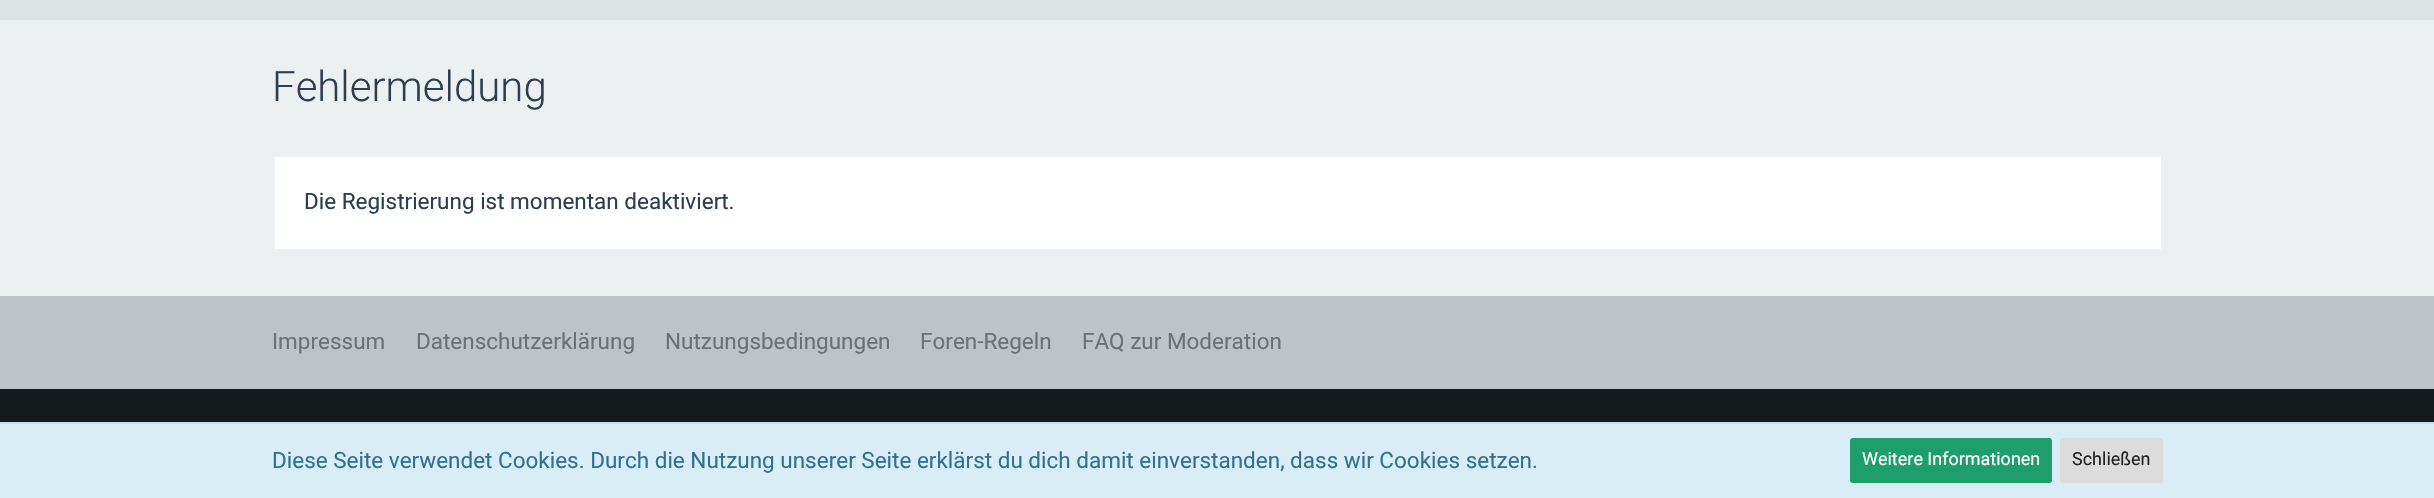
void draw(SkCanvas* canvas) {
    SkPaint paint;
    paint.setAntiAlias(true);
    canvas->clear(0xFFECF0F1);
    paint.setColor(0xFFDDE2E3);
    canvas->drawRect(SkRect::MakeXYWH(0, 0, 2434, 20), paint);
    SkFont font1(fontMgr->matchFamilyStyle("Roboto", SkFontStyle(300, SkFontStyle::kNormal_Width, SkFontStyle::kUpright_Slant)), 42);
    font1.setSubpixel(true);
    paint.setColor(0xFF2C3E50);
    canvas->drawString("Fehlermeldung", 272, 101, font1, paint);
    paint.setColor(0xFFFFFFFF);
    canvas->drawRect(SkRect::MakeXYWH(274, 156, 1888, 94), paint);
    paint.setStyle(SkPaint::kStroke_Style);
    paint.setStrokeWidth(2);
    paint.setColor(0xFFECF1F7);
    canvas->drawRect(SkRect::MakeXYWH(274, 156, 1888, 94), paint);
    SkFont font2(fontMgr->matchFamilyStyle("Roboto", SkFontStyle::Normal()), 22.5f);
    font2.setSubpixel(true);
    paint.setStyle(SkPaint::kFill_Style);
    paint.setColor(0xFF2C3E50);
    canvas->drawString("Die Registrierung ist momentan deaktiviert.", 304, 209, font2, paint);
    paint.setColor(0xFFBEC3C7);
    canvas->drawRect(SkRect::MakeXYWH(0, 296, 2434, 93), paint);
    paint.setColor(0xFF6A7273);
    canvas->drawString("Impressum", 272, 349, font2, paint);
    canvas->drawString("Datenschutzerklärung", 416, 349, font2, paint);
    canvas->drawString("Nutzungsbedingungen", 665, 349, font2, paint);
    canvas->drawString("Foren-Regeln", 920, 349, font2, paint);
    canvas->drawString("FAQ zur Moderation", 1082, 349, font2, paint);
    paint.setColor(0xFF141A1B);
    canvas->drawRect(SkRect::MakeXYWH(0, 389, 2434, 33), paint);
    paint.setColor(0xFFD9EDF7);
    canvas->drawRect(SkRect::MakeXYWH(0, 424, 2434, 74), paint);
    paint.setColor(0xFFBCDFF1);
    canvas->drawRect(SkRect::MakeXYWH(0, 422, 2434, 2), paint);
    paint.setColor(0xFF31708F);
    canvas->drawString("Diese Seite verwendet Cookies. Durch die Nutzung unserer Seite erklärst du dich damit einverstanden, dass wir Cookies setzen.", 272, 468, font2, paint);
    paint.setColor(0xFF1E9E6D);
    canvas->drawRoundRect(SkRect::MakeXYWH(1850, 438, 202, 45), 3, 3, paint);
    SkFont font3(fontMgr->matchFamilyStyle("Roboto", SkFontStyle::Normal()), 18);
    font3.setSubpixel(true);
    paint.setColor(0xFFFFFFFF);
    canvas->drawString("Weitere Informationen", 1862, 465, font3, paint);
    paint.setColor(0xFFDCDCDD);
    canvas->drawRoundRect(SkRect::MakeXYWH(2060, 438, 103, 45), 3, 3, paint);
    paint.setColor(0xFF212121);
    canvas->drawString("Schließen", 2072, 465, font3, paint);
}
